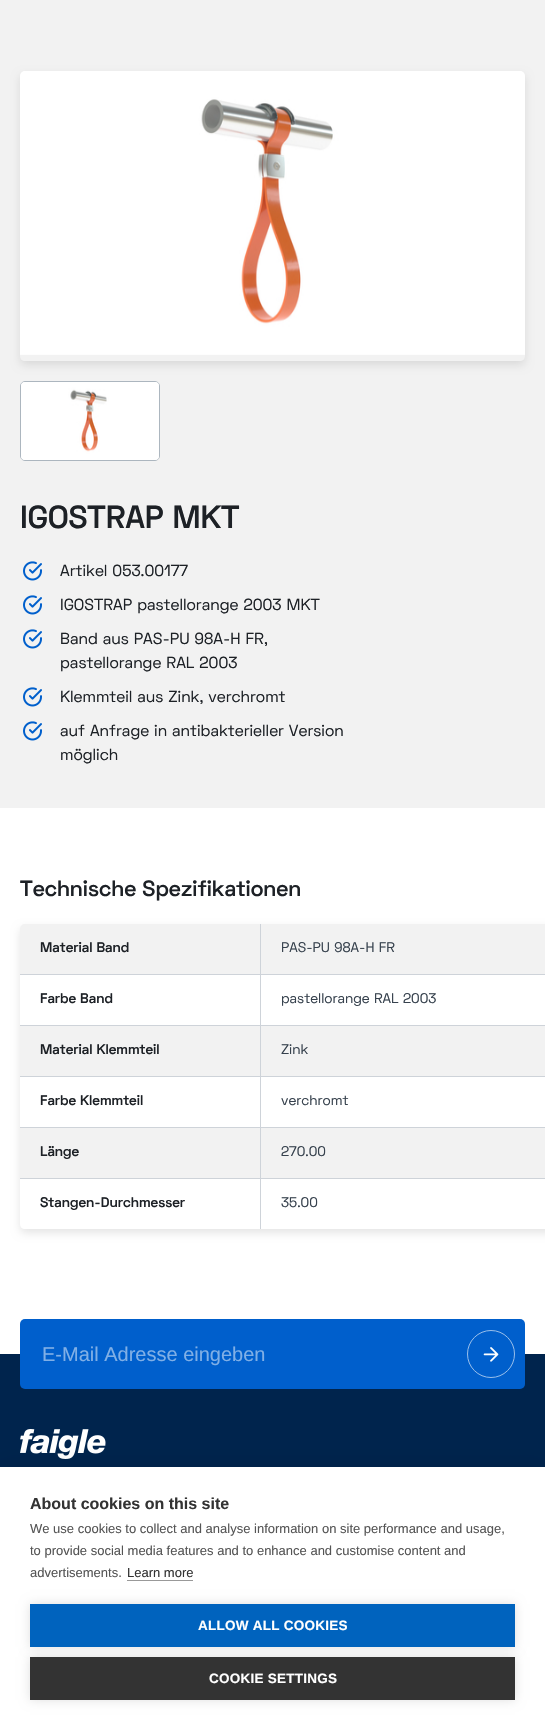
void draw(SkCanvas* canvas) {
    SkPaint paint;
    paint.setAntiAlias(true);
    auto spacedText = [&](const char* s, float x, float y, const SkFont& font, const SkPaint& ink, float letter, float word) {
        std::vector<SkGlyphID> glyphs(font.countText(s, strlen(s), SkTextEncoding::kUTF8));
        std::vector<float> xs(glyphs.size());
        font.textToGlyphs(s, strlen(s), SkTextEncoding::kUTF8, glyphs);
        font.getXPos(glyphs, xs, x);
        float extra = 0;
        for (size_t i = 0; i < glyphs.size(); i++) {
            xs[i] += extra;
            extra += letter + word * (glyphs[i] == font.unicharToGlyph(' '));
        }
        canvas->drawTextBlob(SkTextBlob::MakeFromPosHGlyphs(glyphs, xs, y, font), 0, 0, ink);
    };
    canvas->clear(0xFFFFFFFF);
    paint.setColor(0xFFF2F2F2);
    canvas->drawRect(SkRect::MakeXYWH(0, 0, 545, 808), paint);
    canvas->save();
    canvas->clipPath(SkPathBuilder(SkPathFillType::kEvenOdd).moveTo(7, 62).lineTo(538, 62).lineTo(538, 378).lineTo(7, 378).close().moveTo(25, 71).lineTo(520, 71).cubicTo(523, 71, 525, 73, 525, 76).lineTo(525, 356).cubicTo(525, 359, 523, 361, 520, 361).lineTo(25, 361).cubicTo(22, 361, 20, 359, 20, 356).lineTo(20, 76).cubicTo(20, 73, 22, 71, 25, 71).close().detach(), true);
    paint.setColor(0x1A000000);
    paint.setMaskFilter(SkMaskFilter::MakeBlur(kNormal_SkBlurStyle, 4));
    canvas->drawRoundRect(SkRect::MakeXYWH(20, 75, 505, 290), 5, 5, paint);
    paint.setMaskFilter(nullptr);
    canvas->restore();
    canvas->drawImageRect(SkImages::DeferredFromEncodedData(SkData::MakeFromFileName("img1.png")), SkRect::MakeXYWH(20, 71, 505, 284), SkSamplingOptions());
    paint.setStyle(SkPaint::kStroke_Style);
    paint.setStrokeWidth(1);
    paint.setColor(0xFFACB6BF);
    canvas->drawRoundRect(SkRect::MakeXYWH(20.5f, 381.5f, 139, 79), 4.5f, 4.5f, paint);
    canvas->drawImageRect(SkImages::DeferredFromEncodedData(SkData::MakeFromFileName("img2.png")), SkRect::MakeXYWH(21, 382, 138, 78), SkSamplingOptions());
    SkFont font1(fontMgr->matchFamilyStyle("Space Grotesk", SkFontStyle(600, SkFontStyle::kNormal_Width, SkFontStyle::kUpright_Slant)), 32);
    font1.setSubpixel(true);
    paint.setStyle(SkPaint::kFill_Style);
    paint.setColor(0xFF1D2126);
    canvas->drawString("IGOSTRAP MKT", 20, 528, font1, paint);
    canvas->drawImageRect(SkImages::DeferredFromEncodedData(SkData::MakeFromFileName("img3.png")), SkRect::MakeXYWH(23, 561, 19, 20), SkSamplingOptions());
    SkFont font2(fontMgr->matchFamilyStyle("Space Grotesk", SkFontStyle::Normal()), 16);
    font2.setSubpixel(true);
    canvas->drawString("Artikel 053.00177", 60, 576, font2, paint);
    canvas->drawImageRect(SkImages::DeferredFromEncodedData(SkData::MakeFromFileName("img3.png")), SkRect::MakeXYWH(23, 595, 19, 20), SkSamplingOptions());
    canvas->drawString("IGOSTRAP pastellorange 2003 MKT", 60, 610, font2, paint);
    canvas->drawImageRect(SkImages::DeferredFromEncodedData(SkData::MakeFromFileName("img3.png")), SkRect::MakeXYWH(23, 629, 19, 20), SkSamplingOptions());
    canvas->drawString("Band aus PAS-PU 98A-H FR,", 60, 644, font2, paint);
    canvas->drawString("pastellorange RAL 2003", 60, 668, font2, paint);
    canvas->drawImageRect(SkImages::DeferredFromEncodedData(SkData::MakeFromFileName("img3.png")), SkRect::MakeXYWH(23, 687, 19, 20), SkSamplingOptions());
    canvas->drawString("Klemmteil aus Zink, verchromt", 60, 702, font2, paint);
    canvas->drawImageRect(SkImages::DeferredFromEncodedData(SkData::MakeFromFileName("img3.png")), SkRect::MakeXYWH(23, 721, 19, 20), SkSamplingOptions());
    canvas->drawString("auf Anfrage in antibakterieller Version", 60, 736, font2, paint);
    canvas->drawString("möglich", 60, 760, font2, paint);
    SkFont font3(fontMgr->matchFamilyStyle("Space Grotesk", SkFontStyle(600, SkFontStyle::kNormal_Width, SkFontStyle::kUpright_Slant)), 22);
    font3.setSubpixel(true);
    canvas->drawString("Technische Spezifikationen", 20, 896, font3, paint);
    canvas->save();
    canvas->clipPath(SkPathBuilder(SkPathFillType::kEvenOdd).moveTo(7, 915).lineTo(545, 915).lineTo(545, 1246).lineTo(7, 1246).close().moveTo(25, 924).lineTo(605, 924).cubicTo(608, 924, 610, 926, 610, 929).lineTo(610, 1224).cubicTo(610, 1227, 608, 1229, 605, 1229).lineTo(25, 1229).cubicTo(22, 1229, 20, 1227, 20, 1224).lineTo(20, 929).cubicTo(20, 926, 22, 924, 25, 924).close().detach(), true);
    paint.setColor(0x1A000000);
    paint.setMaskFilter(SkMaskFilter::MakeBlur(kNormal_SkBlurStyle, 4));
    canvas->drawRoundRect(SkRect::MakeXYWH(20, 928, 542, 305), 5, 5, paint);
    paint.setMaskFilter(nullptr);
    canvas->restore();
    paint.setColor(0xFFF2F2F2);
    canvas->drawPath(SkPathBuilder().moveTo(25, 924).lineTo(545, 924).lineTo(545, 975).lineTo(20, 975).lineTo(20, 929).cubicTo(20, 926, 22, 924, 25, 924).close().detach(), paint);
    paint.setColor(0xFFCED3D9);
    canvas->drawRect(SkRect::MakeXYWH(20, 974, 525, 1), paint);
    SkFont font4(fontMgr->matchFamilyStyle("Space Grotesk", SkFontStyle(600, SkFontStyle::kNormal_Width, SkFontStyle::kUpright_Slant)), 14);
    font4.setSubpixel(true);
    paint.setColor(0xFF1D2126);
    canvas->drawString("Material Band", 40, 952, font4, paint);
    SkFont font5(fontMgr->matchFamilyStyle("Space Grotesk", SkFontStyle::Normal()), 14);
    font5.setSubpixel(true);
    paint.setColor(0xFF36414D);
    canvas->drawString("PAS-PU 98A-H FR", 281, 952, font5, paint);
    paint.setColor(0xFFCED3D9);
    canvas->drawRect(SkRect::MakeXYWH(20, 1025, 525, 1), paint);
    paint.setColor(0xFF1D2126);
    canvas->drawString("Farbe Band", 40, 1003, font4, paint);
    paint.setColor(0xFF36414D);
    canvas->drawString("pastellorange RAL 2003", 281, 1003, font5, paint);
    paint.setColor(0xFFF2F2F2);
    canvas->drawRect(SkRect::MakeXYWH(20, 1026, 525, 50), paint);
    paint.setColor(0xFFCED3D9);
    canvas->drawRect(SkRect::MakeXYWH(20, 1076, 525, 1), paint);
    paint.setColor(0xFF1D2126);
    canvas->drawString("Material Klemmteil", 40, 1054, font4, paint);
    paint.setColor(0xFF36414D);
    canvas->drawString("Zink", 281, 1054, font5, paint);
    paint.setColor(0xFFCED3D9);
    canvas->drawRect(SkRect::MakeXYWH(20, 1127, 525, 1), paint);
    paint.setColor(0xFF1D2126);
    canvas->drawString("Farbe Klemmteil", 40, 1105, font4, paint);
    paint.setColor(0xFF36414D);
    canvas->drawString("verchromt", 281, 1105, font5, paint);
    paint.setColor(0xFFF2F2F2);
    canvas->drawRect(SkRect::MakeXYWH(20, 1128, 525, 50), paint);
    paint.setColor(0xFFCED3D9);
    canvas->drawRect(SkRect::MakeXYWH(20, 1178, 525, 1), paint);
    paint.setColor(0xFF1D2126);
    canvas->drawString("Länge", 40, 1156, font4, paint);
    paint.setColor(0xFF36414D);
    canvas->drawString("270.00", 281, 1156, font5, paint);
    paint.setColor(0xFF1D2126);
    canvas->drawString("Stangen-Durchmesser", 40, 1207, font4, paint);
    paint.setColor(0xFFCED3D9);
    canvas->drawRect(SkRect::MakeXYWH(260, 924, 1, 305), paint);
    paint.setColor(0xFF36414D);
    canvas->drawString("35.00", 281, 1207, font5, paint);
    paint.setColor(0xFF00244D);
    canvas->drawRect(SkRect::MakeXYWH(0, 1354, 545, 113), paint);
    paint.setColor(0xFF005FCC);
    canvas->drawRoundRect(SkRect::MakeXYWH(20, 1319, 505, 70), 5, 5, paint);
    SkFont font6(fontMgr->matchFamilyStyle("Liberation Sans", SkFontStyle::Normal()), 20);
    font6.setSubpixel(true);
    paint.setColor(0xFF80AFE6);
    canvas->drawString("E-Mail Adresse eingeben", 42, 1361, font6, paint);
    paint.setStyle(SkPaint::kStroke_Style);
    paint.setColor(0xFF99BFEB);
    canvas->drawCircle(491, 1354, 23.5f, paint);
    canvas->drawImageRect(SkImages::DeferredFromEncodedData(SkData::MakeFromFileName("img4.png")), SkRect::MakeXYWH(483, 1347, 16, 15), SkSamplingOptions());
    canvas->drawImageRect(SkImages::DeferredFromEncodedData(SkData::MakeFromFileName("img5.png")), SkRect::MakeXYWH(20, 1429, 86, 30), SkSamplingOptions());
    paint.setStyle(SkPaint::kFill_Style);
    paint.setColor(0x1A000000);
    paint.setMaskFilter(SkMaskFilter::MakeBlur(kNormal_SkBlurStyle, 10));
    canvas->drawRect(SkRect::MakeXYWH(0, 1467, 545, 258), paint);
    paint.setMaskFilter(nullptr);
    paint.setColor(0xFFFFFFFF);
    canvas->drawRect(SkRect::MakeXYWH(0, 1467, 545, 258), paint);
    SkFont font7(fontMgr->matchFamilyStyle("Liberation Sans", SkFontStyle::Bold()), 16);
    font7.setSubpixel(true);
    paint.setColor(0xFF333333);
    canvas->drawString("About cookies on this site", 30, 1509, font7, paint);
    SkFont font8(fontMgr->matchFamilyStyle("Liberation Sans", SkFontStyle::Normal()), 13);
    font8.setSubpixel(true);
    paint.setColor(0xFF555555);
    canvas->drawString("We use cookies to collect and analyse information on site performance and usage,", 30, 1533, font8, paint);
    canvas->drawString("to provide social media features and to enhance and customise content and", 30, 1555, font8, paint);
    canvas->drawString("advertisements.", 30, 1577, font8, paint);
    paint.setColor(0xFF333333);
    canvas->drawString("Learn more", 127, 1577, font8, paint);
    paint.setColor(0xFF999999);
    canvas->drawRect(SkRect::MakeXYWH(127, 1580, 66, 1), paint);
    paint.setColor(0x1F000000);
    paint.setMaskFilter(SkMaskFilter::MakeBlur(kNormal_SkBlurStyle, 5));
    canvas->drawRect(SkRect::MakeXYWH(30, 1604, 485, 43), paint);
    paint.setMaskFilter(nullptr);
    paint.setColor(0xFF0063BE);
    canvas->drawRect(SkRect::MakeXYWH(30, 1604, 485, 43), paint);
    SkFont font9(fontMgr->matchFamilyStyle("Liberation Sans", SkFontStyle::Bold()), 13.5f);
    font9.setSubpixel(true);
    paint.setColor(0xFFFFFFFF);
    spacedText("ALLOW ALL COOKIES", 198, 1630, font9, paint, 0.25f, 0);
    paint.setColor(0x1F000000);
    paint.setMaskFilter(SkMaskFilter::MakeBlur(kNormal_SkBlurStyle, 5));
    canvas->drawRect(SkRect::MakeXYWH(30, 1657, 485, 43), paint);
    paint.setMaskFilter(nullptr);
    paint.setColor(0xFF333333);
    canvas->drawRect(SkRect::MakeXYWH(30, 1657, 485, 43), paint);
    paint.setColor(0xFFFFFFFF);
    spacedText("COOKIE SETTINGS", 209, 1683, font9, paint, 0.25f, 0);
}
